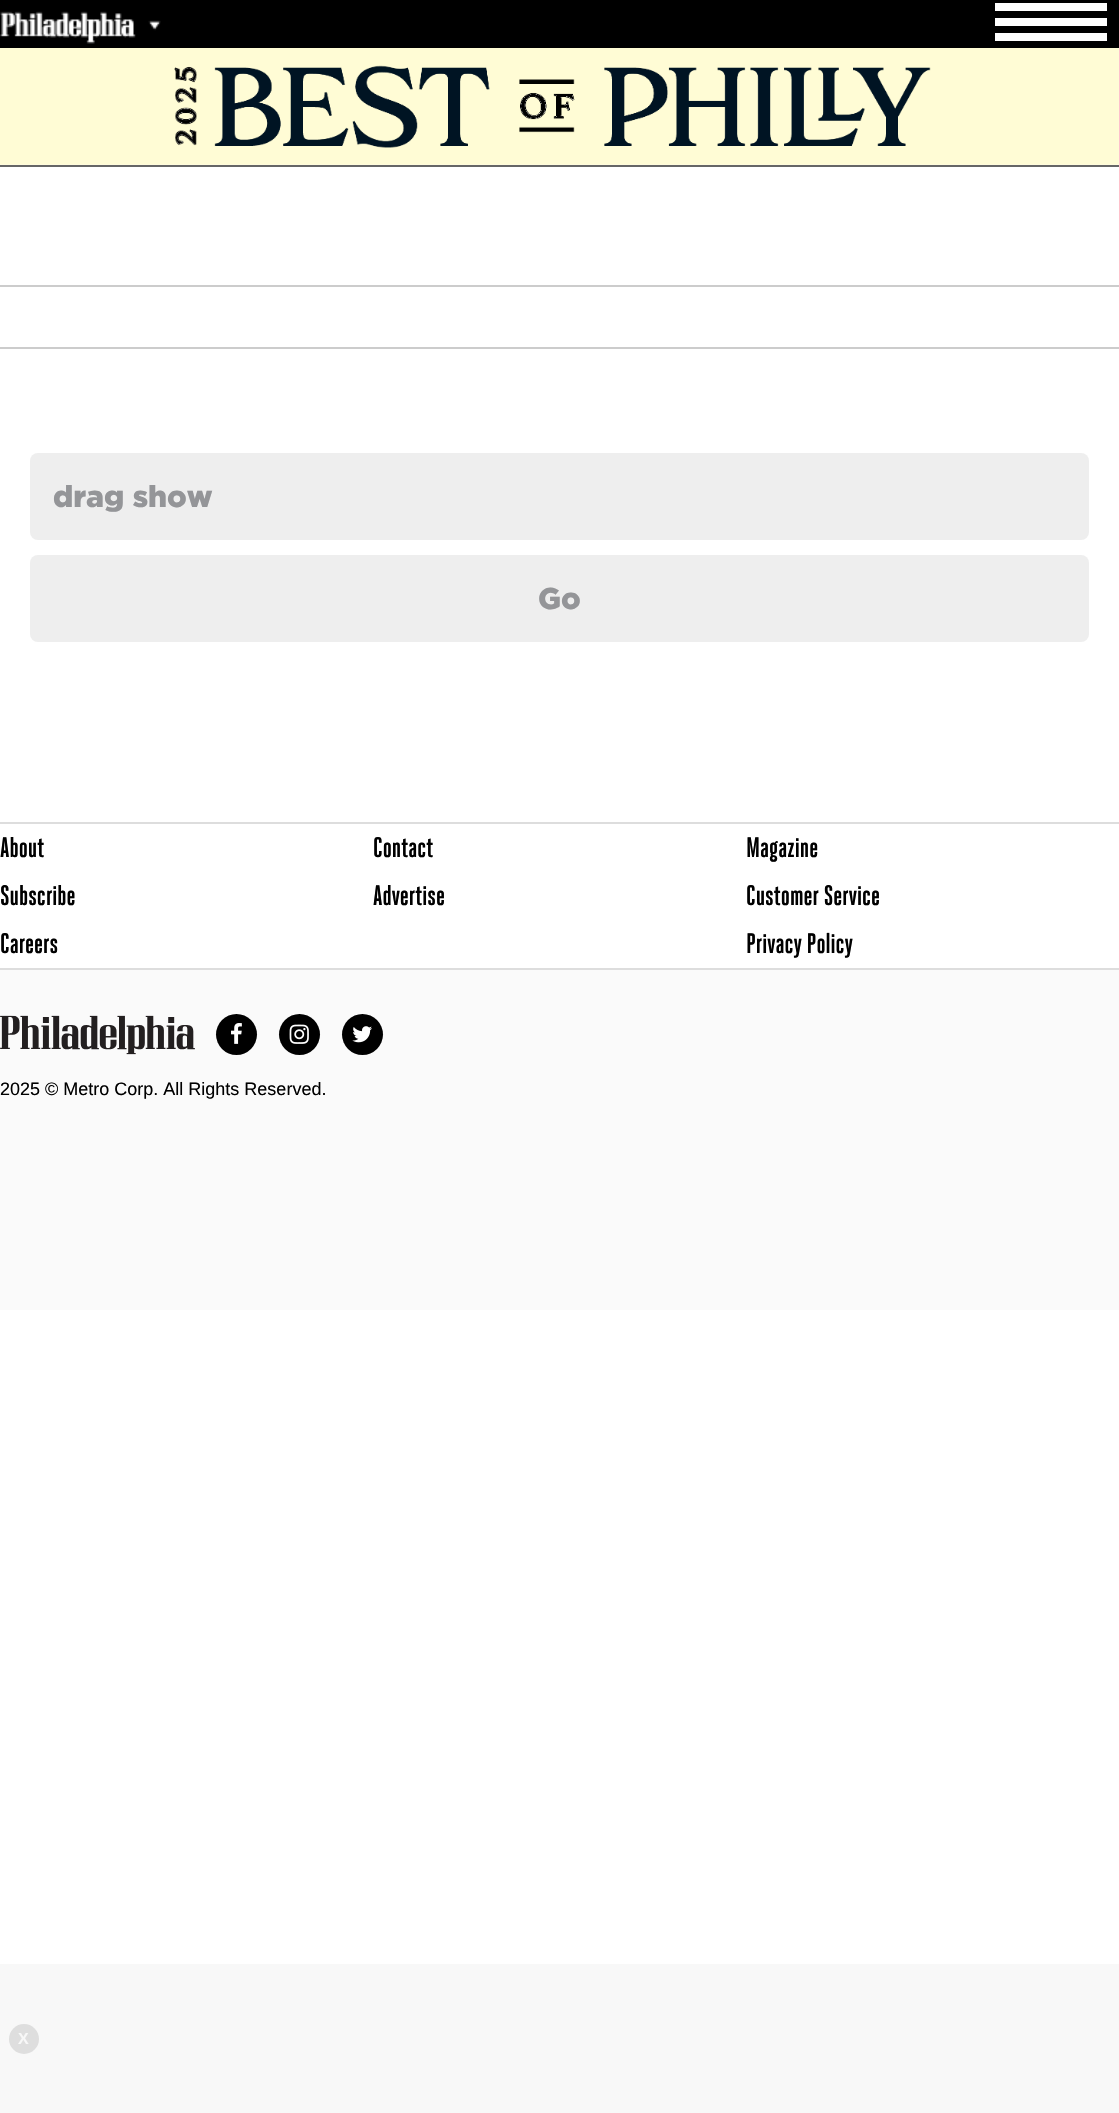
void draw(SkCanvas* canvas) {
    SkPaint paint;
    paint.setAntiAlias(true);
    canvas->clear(0xFFFFFFFF);
    paint.setColor(0xFFF8F8F8);
    canvas->drawRect(SkRect::MakeXYWH(0, 1964, 1119, 149), paint);
    paint.setColor(0xFF000000);
    canvas->drawRect(SkRect::MakeXYWH(0, 0, 1119, 48), paint);
    canvas->drawImageRect(SkImages::DeferredFromEncodedData(SkData::MakeFromFileName("img1.png")), SkRect::MakeXYWH(0, 11, 161, 33), SkSamplingOptions());
    paint.setColor(0xFFFFFFFF);
    canvas->drawRect(SkRect::MakeXYWH(995, 3, 112, 8), paint);
    canvas->drawRect(SkRect::MakeXYWH(995, 18, 112, 8), paint);
    canvas->drawRect(SkRect::MakeXYWH(995, 33, 112, 8), paint);
    paint.setColor(0xFF666666);
    canvas->drawRect(SkRect::MakeXYWH(0, 165, 1119, 2), paint);
    canvas->drawImageRect(SkImages::DeferredFromEncodedData(SkData::MakeFromFileName("img2.png")), SkRect::MakeXYWH(0, 48, 1119, 117), SkSamplingOptions());
    paint.setColor(0xFFCCCCCC);
    canvas->drawRect(SkRect::MakeXYWH(0, 285, 1119, 2), paint);
    canvas->drawRect(SkRect::MakeXYWH(0, 347, 1119, 2), paint);
    paint.setColor(0xFFEEEEEE);
    canvas->drawRoundRect(SkRect::MakeXYWH(30, 453, 1059, 87), 8, 8, paint);
    SkFont font1(fontMgr->matchFamilyStyle("Gotham", SkFontStyle(900, SkFontStyle::kNormal_Width, SkFontStyle::kUpright_Slant)), 30);
    font1.setSubpixel(true);
    paint.setColor(0xFF949598);
    canvas->drawString("drag show", 53, 507, font1, paint);
    paint.setColor(0xFFEEEEEE);
    canvas->drawRoundRect(SkRect::MakeXYWH(30, 555, 1059, 87), 8, 8, paint);
    paint.setColor(0xFF949598);
    canvas->drawString("Go", 538, 609, font1, paint);
    paint.setColor(0xFFFAFAFA);
    canvas->drawRect(SkRect::MakeXYWH(0, 970, 1119, 340), paint);
    paint.setColor(0xFFDDDDDD);
    canvas->drawRect(SkRect::MakeXYWH(0, 822, 1119, 2), paint);
    canvas->drawRect(SkRect::MakeXYWH(0, 968, 1119, 2), paint);
    SkFont font2(fontMgr->matchFamilyStyle("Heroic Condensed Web", SkFontStyle(600, SkFontStyle::kNormal_Width, SkFontStyle::kUpright_Slant)), 27);
    font2.setSubpixel(true);
    paint.setColor(0xFF000000);
    canvas->drawString("About", 0, 857, font2, paint);
    canvas->drawString("Contact", 373, 857, font2, paint);
    canvas->drawString("Magazine", 746, 857, font2, paint);
    canvas->drawString("Subscribe", 0, 905, font2, paint);
    canvas->drawString("Advertise", 373, 905, font2, paint);
    canvas->drawString("Customer Service", 746, 905, font2, paint);
    canvas->drawString("Careers", 0, 953, font2, paint);
    canvas->drawString("Privacy Policy", 746, 953, font2, paint);
    canvas->drawImageRect(SkImages::DeferredFromEncodedData(SkData::MakeFromFileName("img3.png")), SkRect::MakeXYWH(0, 1015, 195, 40), SkSamplingOptions());
    canvas->drawCircle(236.5f, 1034.5f, 20.5f, paint);
    canvas->drawImageRect(SkImages::DeferredFromEncodedData(SkData::MakeFromFileName("img4.png")), SkRect::MakeXYWH(231, 1023, 11, 21), SkSamplingOptions());
    canvas->drawCircle(299.5f, 1034.5f, 20.5f, paint);
    canvas->drawImageRect(SkImages::DeferredFromEncodedData(SkData::MakeFromFileName("img5.png")), SkRect::MakeXYWH(289, 1024, 20, 20), SkSamplingOptions());
    canvas->drawCircle(362.5f, 1034.5f, 20.5f, paint);
    canvas->drawImageRect(SkImages::DeferredFromEncodedData(SkData::MakeFromFileName("img6.png")), SkRect::MakeXYWH(352, 1026, 20, 17), SkSamplingOptions());
    SkFont font3(fontMgr->matchFamilyStyle("Liberation Sans", SkFontStyle::Normal()), 18);
    font3.setSubpixel(true);
    canvas->drawString("2025 © Metro Corp. All Rights Reserved.", 0, 1095, font3, paint);
    paint.setColor(0xFFDEDEDE);
    canvas->drawCircle(24, 2039, 15, paint);
    SkFont font4(fontMgr->matchFamilyStyle("Liberation Sans", SkFontStyle::Bold()), 16);
    font4.setSubpixel(true);
    paint.setColor(0xFFF8F8F8);
    canvas->drawString("X", 18, 2044, font4, paint);
}
